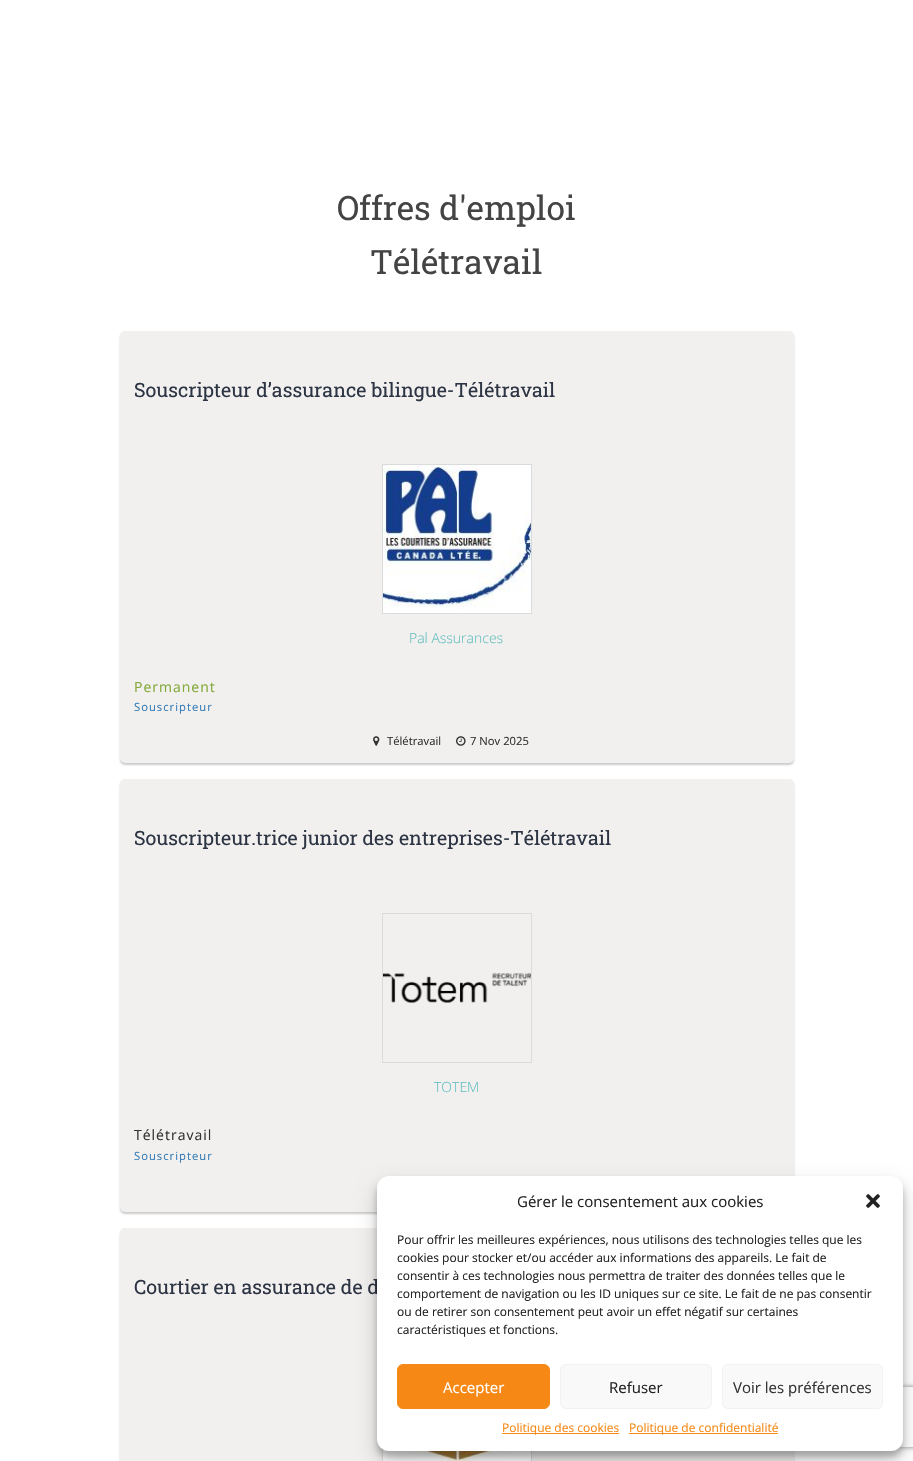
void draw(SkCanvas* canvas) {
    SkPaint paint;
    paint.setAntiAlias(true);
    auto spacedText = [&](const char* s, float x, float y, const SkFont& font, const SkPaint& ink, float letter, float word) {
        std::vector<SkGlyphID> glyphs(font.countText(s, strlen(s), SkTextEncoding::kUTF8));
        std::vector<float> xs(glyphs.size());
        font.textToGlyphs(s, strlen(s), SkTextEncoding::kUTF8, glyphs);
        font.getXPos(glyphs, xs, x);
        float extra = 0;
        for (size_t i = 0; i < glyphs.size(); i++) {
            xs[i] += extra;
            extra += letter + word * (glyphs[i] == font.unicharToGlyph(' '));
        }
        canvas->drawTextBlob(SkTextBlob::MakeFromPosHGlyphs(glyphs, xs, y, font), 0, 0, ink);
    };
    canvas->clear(0xFFFFFFFF);
    SkFont font1(fontMgr->matchFamilyStyle("Roboto Slab", SkFontStyle::Normal()), 33.5f);
    font1.setSubpixel(true);
    paint.setColor(0xFF444444);
    canvas->drawString("Offres d'emploi", 337, 220, font1, paint);
    canvas->drawString("Télétravail", 370, 274, font1, paint);
    paint.setColor(0xFFCCCCCC);
    paint.setMaskFilter(SkMaskFilter::MakeBlur(kNormal_SkBlurStyle, 1));
    canvas->drawRoundRect(SkRect::MakeXYWH(120, 333, 674, 432), 5, 5, paint);
    paint.setMaskFilter(nullptr);
    paint.setColor(0xFFF1F0EF);
    canvas->drawRoundRect(SkRect::MakeXYWH(120, 331, 674, 432), 5, 5, paint);
    SkFont font2(fontMgr->matchFamilyStyle("Roboto Slab", SkFontStyle::Normal()), 19.6f);
    font2.setSubpixel(true);
    paint.setColor(0xFF2D3443);
    canvas->drawString("Souscripteur d’assurance bilingue-Télétravail", 134, 397, font2, paint);
    paint.setStyle(SkPaint::kStroke_Style);
    paint.setStrokeWidth(1);
    paint.setColor(0xFFDADBDD);
    canvas->drawRect(SkRect::MakeXYWH(382.5f, 464.5f, 149, 149), paint);
    canvas->drawImageRect(SkImages::DeferredFromEncodedData(SkData::MakeFromFileName("img1.png")), SkRect::MakeXYWH(383, 465, 148, 148), SkSamplingOptions());
    SkFont font3(fontMgr->matchFamilyStyle("Open Sans", SkFontStyle(300, SkFontStyle::kNormal_Width, SkFontStyle::kUpright_Slant)), 14);
    font3.setSubpixel(true);
    paint.setStyle(SkPaint::kFill_Style);
    paint.setColor(0xFF61BEBE);
    canvas->drawString("Pal Assurances", 409, 643, font3, paint);
    SkFont font4(fontMgr->matchFamilyStyle("Open Sans", SkFontStyle::Normal()), 14);
    font4.setSubpixel(true);
    paint.setColor(0xFF83AA3B);
    spacedText("Permanent", 134, 692, font4, paint, 1, 0);
    SkFont font5(fontMgr->matchFamilyStyle("Open Sans", SkFontStyle::Normal()), 11.25f);
    font5.setSubpixel(true);
    paint.setColor(0xFF337AB7);
    spacedText("Souscripteur", 134, 711, font5, paint, 1, 0);
    canvas->drawImageRect(SkImages::DeferredFromEncodedData(SkData::MakeFromFileName("img2.png")), SkRect::MakeXYWH(373, 736, 7, 10), SkSamplingOptions());
    paint.setColor(0xFF333333);
    canvas->drawString("Télétravail", 387, 745, font5, paint);
    canvas->drawImageRect(SkImages::DeferredFromEncodedData(SkData::MakeFromFileName("img3.png")), SkRect::MakeXYWH(456, 736, 10, 10), SkSamplingOptions());
    canvas->drawString("7 Nov 2025", 470, 745, font5, paint);
    paint.setColor(0xFFCCCCCC);
    paint.setMaskFilter(SkMaskFilter::MakeBlur(kNormal_SkBlurStyle, 1));
    canvas->drawRoundRect(SkRect::MakeXYWH(120, 781, 674, 433), 5, 5, paint);
    paint.setMaskFilter(nullptr);
    paint.setColor(0xFFF1F0EF);
    canvas->drawRoundRect(SkRect::MakeXYWH(120, 779, 674, 433), 5, 5, paint);
    paint.setColor(0xFF2D3443);
    canvas->drawString("Souscripteur.trice junior des entreprises-Télétravail", 134, 845, font2, paint);
    paint.setStyle(SkPaint::kStroke_Style);
    paint.setColor(0xFFDADBDD);
    canvas->drawRect(SkRect::MakeXYWH(382.5f, 913.5f, 149, 149), paint);
    canvas->drawImageRect(SkImages::DeferredFromEncodedData(SkData::MakeFromFileName("img4.png")), SkRect::MakeXYWH(383, 973, 148, 30), SkSamplingOptions());
    paint.setStyle(SkPaint::kFill_Style);
    paint.setColor(0xFF61BEBE);
    canvas->drawString("TOTEM", 434, 1092, font3, paint);
    paint.setColor(0xFF333333);
    spacedText("Télétravail", 134, 1140, font4, paint, 1, 0);
    paint.setColor(0xFF337AB7);
    spacedText("Souscripteur", 134, 1160, font5, paint, 1, 0);
    canvas->drawImageRect(SkImages::DeferredFromEncodedData(SkData::MakeFromFileName("img5.png")), SkRect::MakeXYWH(377, 1186, 1, 2), SkSamplingOptions());
    paint.setColor(0xFFCCCCCC);
    paint.setMaskFilter(SkMaskFilter::MakeBlur(kNormal_SkBlurStyle, 1));
    canvas->drawRoundRect(SkRect::MakeXYWH(120, 1230, 674, 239), 5, 5, paint);
    paint.setMaskFilter(nullptr);
    paint.setColor(0xFFF1F0EF);
    canvas->drawRoundRect(SkRect::MakeXYWH(120, 1228, 674, 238), 5, 5, paint);
    paint.setColor(0xFF2D3443);
    canvas->drawString("Courtier en assurance de d", 134, 1294, font2, paint);
    paint.setStyle(SkPaint::kStroke_Style);
    paint.setColor(0xFFDADBDD);
    canvas->drawRect(SkRect::MakeXYWH(382.5f, 1361.5f, 149, 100), paint);
    canvas->drawImageRect(SkImages::DeferredFromEncodedData(SkData::MakeFromFileName("img6.png")), SkRect::MakeXYWH(383, 1449, 148, 12), SkSamplingOptions());
    paint.setStyle(SkPaint::kFill_Style);
    paint.setColor(0x3B000000);
    paint.setMaskFilter(SkMaskFilter::MakeBlur(kNormal_SkBlurStyle, 3));
    canvas->drawRoundRect(SkRect::MakeXYWH(377, 1182, 526, 275), 12, 12, paint);
    paint.setMaskFilter(nullptr);
    paint.setColor(0x30000000);
    paint.setMaskFilter(SkMaskFilter::MakeBlur(kNormal_SkBlurStyle, 10));
    canvas->drawRoundRect(SkRect::MakeXYWH(377, 1186, 526, 275), 12, 12, paint);
    paint.setMaskFilter(nullptr);
    canvas->save();
    canvas->clipPath(SkPathBuilder(SkPathFillType::kEvenOdd).moveTo(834, 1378).lineTo(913, 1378).lineTo(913, 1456).lineTo(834, 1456).close().moveTo(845, 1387).lineTo(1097, 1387).cubicTo(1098, 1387, 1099, 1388, 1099, 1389).lineTo(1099, 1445).cubicTo(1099, 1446, 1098, 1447, 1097, 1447).lineTo(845, 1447).cubicTo(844, 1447, 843, 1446, 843, 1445).lineTo(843, 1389).cubicTo(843, 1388, 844, 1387, 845, 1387).close().detach(), true);
    paint.setColor(0xFF808080);
    paint.setMaskFilter(SkMaskFilter::MakeBlur(kNormal_SkBlurStyle, 2.5f));
    canvas->drawRoundRect(SkRect::MakeXYWH(843, 1387, 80, 60), 2, 2, paint);
    paint.setMaskFilter(nullptr);
    canvas->restore();
    paint.setColor(0xFFFFFFFF);
    canvas->drawRoundRect(SkRect::MakeXYWH(377, 1176, 526, 275), 12, 12, paint);
    SkFont font6(fontMgr->matchFamilyStyle("Open Sans", SkFontStyle::Normal()), 15);
    font6.setSubpixel(true);
    paint.setColor(0xFF222222);
    canvas->drawString("Gérer le consentement aux cookies", 517, 1207, font6, paint);
    canvas->drawImageRect(SkImages::DeferredFromEncodedData(SkData::MakeFromFileName("img7.png")), SkRect::MakeXYWH(866, 1194, 14, 14), SkSamplingOptions());
    SkFont font7(fontMgr->matchFamilyStyle("Open Sans", SkFontStyle::Normal()), 12);
    font7.setSubpixel(true);
    canvas->drawString("Pour offrir les meilleures expériences, nous utilisons des technologies telles que les", 397, 1244, font7, paint);
    canvas->drawString("cookies pour stocker et/ou accéder aux informations des appareils. Le fait de", 397, 1262, font7, paint);
    canvas->drawString("consentir à ces technologies nous permettra de traiter des données telles que le", 397, 1280, font7, paint);
    canvas->drawString("comportement de navigation ou les ID uniques sur ce site. Le fait de ne pas consentir", 397, 1298, font7, paint);
    canvas->drawString("ou de retirer son consentement peut avoir un effet négatif sur certaines", 397, 1316, font7, paint);
    canvas->drawString("caractéristiques et fonctions.", 397, 1334, font7, paint);
    paint.setColor(0xFFF68815);
    canvas->drawRoundRect(SkRect::MakeXYWH(397.5f, 1364.5f, 152, 44), 5.5f, 5.5f, paint);
    paint.setStyle(SkPaint::kStroke_Style);
    canvas->drawRoundRect(SkRect::MakeXYWH(397.5f, 1364.5f, 152, 44), 5.5f, 5.5f, paint);
    paint.setStyle(SkPaint::kFill_Style);
    paint.setColor(0xFFFFFFFF);
    canvas->drawString("Accepter", 443, 1393, font6, paint);
    paint.setColor(0xFFF9F9F9);
    canvas->drawRoundRect(SkRect::MakeXYWH(560.5f, 1364.5f, 151, 44), 5.5f, 5.5f, paint);
    paint.setStyle(SkPaint::kStroke_Style);
    paint.setColor(0xFFF2F2F2);
    canvas->drawRoundRect(SkRect::MakeXYWH(560.5f, 1364.5f, 151, 44), 5.5f, 5.5f, paint);
    paint.setStyle(SkPaint::kFill_Style);
    paint.setColor(0xFF222222);
    canvas->drawString("Refuser", 609, 1393, font6, paint);
    paint.setColor(0xFFF9F9F9);
    canvas->drawRoundRect(SkRect::MakeXYWH(722.5f, 1364.5f, 160, 44), 5.5f, 5.5f, paint);
    paint.setStyle(SkPaint::kStroke_Style);
    paint.setColor(0xFFF2F2F2);
    canvas->drawRoundRect(SkRect::MakeXYWH(722.5f, 1364.5f, 160, 44), 5.5f, 5.5f, paint);
    paint.setStyle(SkPaint::kFill_Style);
    paint.setColor(0xFF333333);
    canvas->drawString("Voir les préférences", 733, 1393, font6, paint);
    paint.setColor(0xFFF68815);
    canvas->drawRect(SkRect::MakeXYWH(502, 1433, 117, 1), paint);
    canvas->drawString("Politique des cookies", 502, 1432, font7, paint);
    canvas->drawRect(SkRect::MakeXYWH(629, 1433, 149, 1), paint);
    canvas->drawString("Politique de confidentialité", 629, 1432, font7, paint);
}
